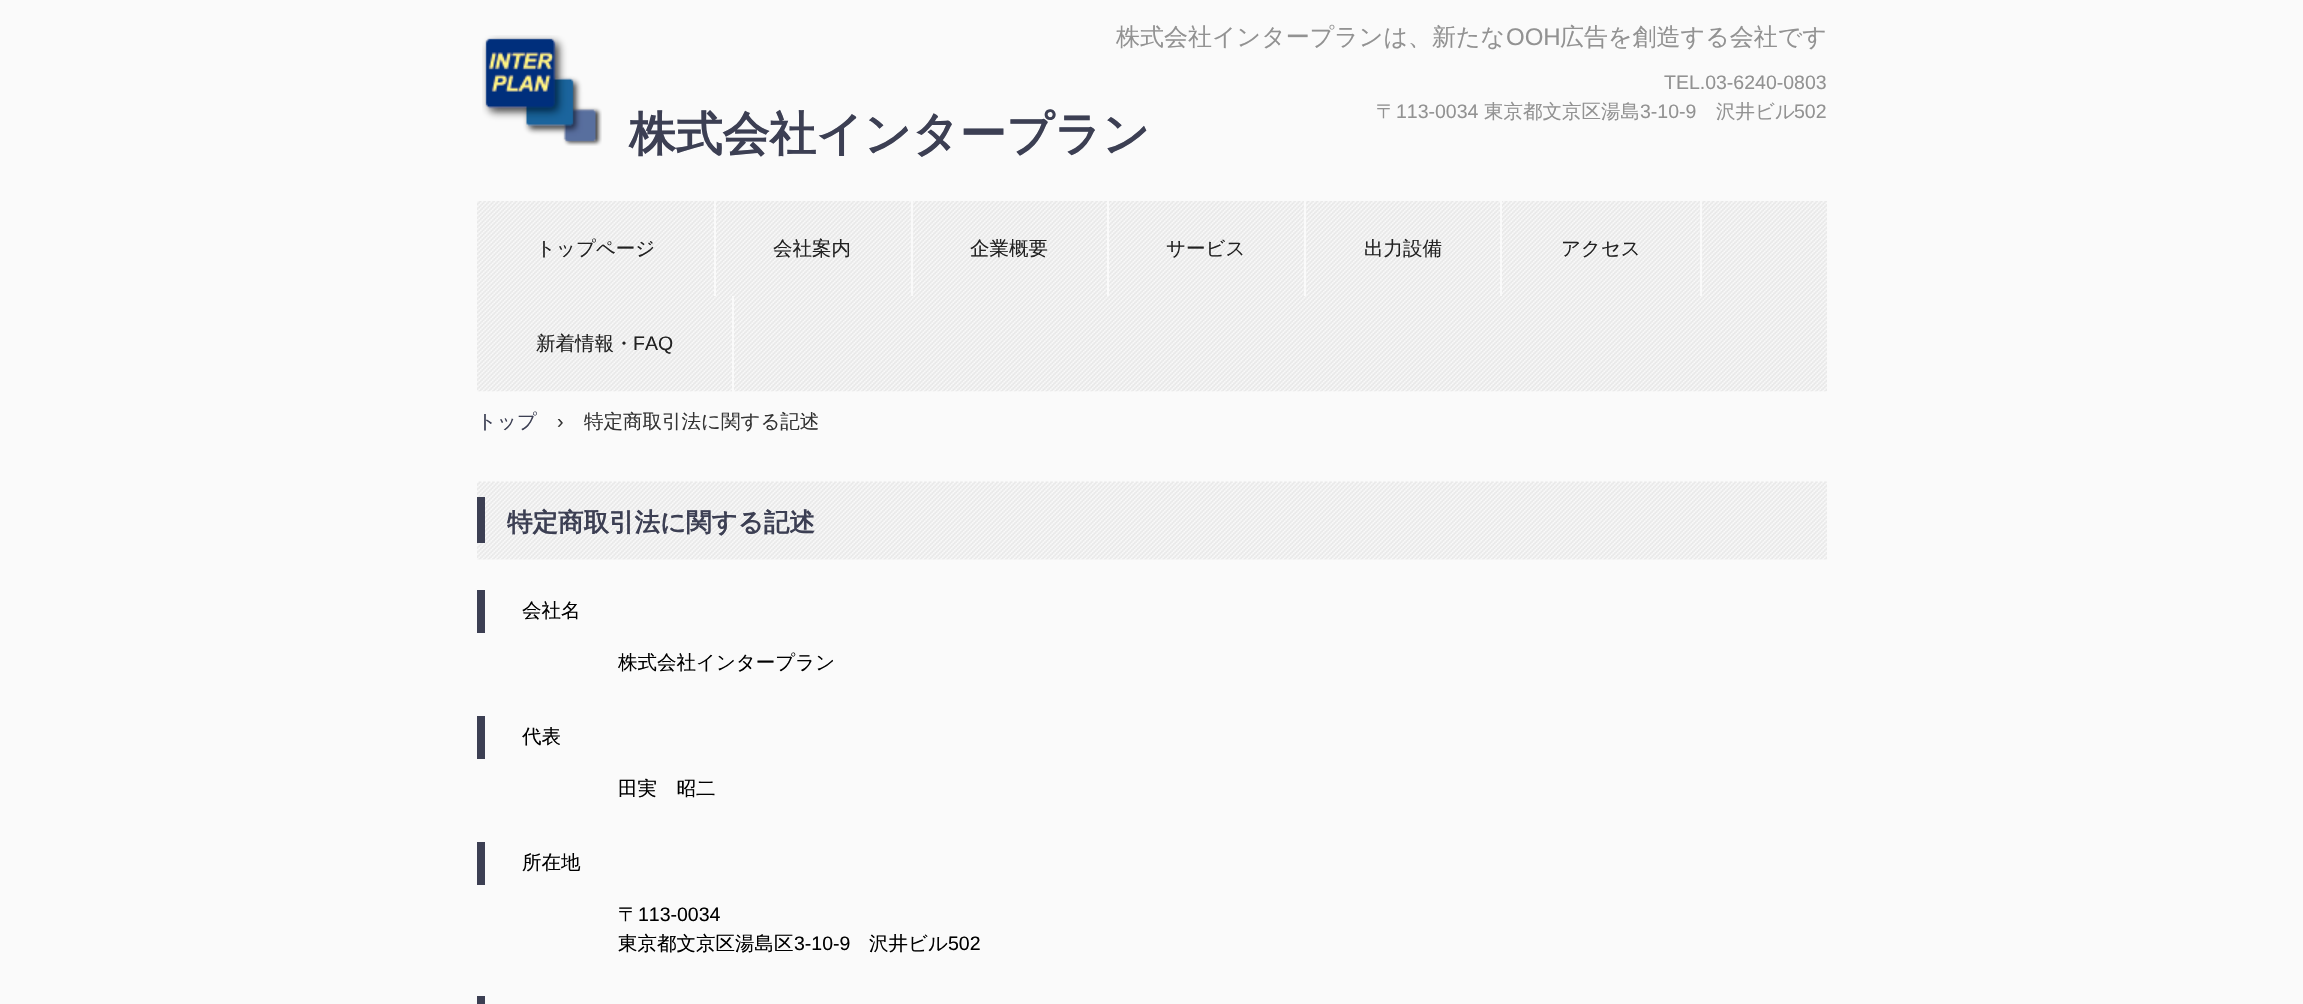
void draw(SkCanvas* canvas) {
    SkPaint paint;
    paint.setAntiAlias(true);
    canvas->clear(0xFFFAFAFA);
    canvas->drawImageRect(SkImages::DeferredFromEncodedData(SkData::MakeFromFileName("img1.png")), SkRect::MakeXYWH(482, 35, 120, 111), SkSamplingOptions());
    SkFont font1(fontMgr->matchFamilyStyle("WenQuanYi Zen Hei", SkFontStyle(500, SkFontStyle::kNormal_Width, SkFontStyle::kUpright_Slant)), 24);
    font1.setSubpixel(true);
    paint.setColor(0xFF929292);
    canvas->drawString("株式会社インタープランは、新たな", 1116, 45, font1, paint);
    SkFont font2(fontMgr->matchFamilyStyle("Liberation Sans", SkFontStyle::Normal()), 24);
    font2.setSubpixel(true);
    canvas->drawString("OOH", 1506, 45, font2, paint);
    canvas->drawString("広告を創造する会社です", 1560, 45, font1, paint);
    SkFont font3(fontMgr->matchFamilyStyle("Liberation Sans", SkFontStyle::Normal()), 19.5f);
    font3.setSubpixel(true);
    canvas->drawString("TEL.03-6240-0803", 1664, 89, font3, paint);
    SkFont font4(fontMgr->matchFamilyStyle("WenQuanYi Zen Hei", SkFontStyle(500, SkFontStyle::kNormal_Width, SkFontStyle::kUpright_Slant)), 19.5f);
    font4.setSubpixel(true);
    canvas->drawString("〒", 1376, 118, font4, paint);
    canvas->drawString("113-0034", 1396, 118, font3, paint);
    canvas->drawString("東京都文京区湯島", 1484, 118, font4, paint);
    canvas->drawString("3-10-9", 1640, 118, font3, paint);
    canvas->drawString("沢井ビル", 1716, 118, font4, paint);
    canvas->drawString("502", 1794, 118, font3, paint);
    SkFont font5(fontMgr->matchFamilyStyle("WenQuanYi Zen Hei", SkFontStyle::Bold()), 46.75f);
    font5.setSubpixel(true);
    paint.setColor(0xFF3C3F53);
    canvas->drawString("株式会社インタープラン", 629, 150, font5, paint);
    paint.setColor(0xFFFFFFFF);
    canvas->drawRect(SkRect::MakeXYWH(477, 391, 1350, 1), paint);
    canvas->drawImageRect(SkImages::DeferredFromEncodedData(SkData::MakeFromFileName("img2.png")), SkRect::MakeXYWH(477, 201, 1350, 191), SkSamplingOptions());
    paint.setColor(0xFFFAFAFA);
    canvas->drawRect(SkRect::MakeXYWH(714, 201, 2, 95), paint);
    paint.setColor(0xFF222222);
    canvas->drawString("トップページ", 536, 255, font4, paint);
    paint.setColor(0xFFFAFAFA);
    canvas->drawRect(SkRect::MakeXYWH(911, 201, 2, 95), paint);
    paint.setColor(0xFF222222);
    canvas->drawString("会社案内", 773, 255, font4, paint);
    paint.setColor(0xFFFAFAFA);
    canvas->drawRect(SkRect::MakeXYWH(1107, 201, 2, 95), paint);
    paint.setColor(0xFF222222);
    canvas->drawString("企業概要", 970, 255, font4, paint);
    paint.setColor(0xFFFAFAFA);
    canvas->drawRect(SkRect::MakeXYWH(1304, 201, 2, 95), paint);
    paint.setColor(0xFF222222);
    canvas->drawString("サービス", 1166, 255, font4, paint);
    paint.setColor(0xFFFAFAFA);
    canvas->drawRect(SkRect::MakeXYWH(1500, 201, 2, 95), paint);
    paint.setColor(0xFF222222);
    canvas->drawString("出力設備", 1364, 255, font4, paint);
    paint.setColor(0xFFFAFAFA);
    canvas->drawRect(SkRect::MakeXYWH(1700, 201, 2, 95), paint);
    paint.setColor(0xFF222222);
    canvas->drawString("アクセス", 1561, 255, font4, paint);
    paint.setColor(0xFFFAFAFA);
    canvas->drawRect(SkRect::MakeXYWH(732, 296, 2, 96), paint);
    paint.setColor(0xFF222222);
    canvas->drawString("新着情報・", 536, 350, font4, paint);
    canvas->drawString("FAQ", 633, 350, font3, paint);
    paint.setColor(0xFF3C3F53);
    canvas->drawString("トップ", 477, 428, font4, paint);
    paint.setColor(0xFF333333);
    canvas->drawString("›", 557, 428, font3, paint);
    canvas->drawString("特定商取引法に関する記述", 584, 428, font4, paint);
    canvas->drawImageRect(SkImages::DeferredFromEncodedData(SkData::MakeFromFileName("img3.png")), SkRect::MakeXYWH(477, 481, 1350, 79), SkSamplingOptions());
    paint.setColor(0xFF3C3F53);
    canvas->drawRect(SkRect::MakeXYWH(477, 497, 8, 46), paint);
    SkFont font6(fontMgr->matchFamilyStyle("WenQuanYi Zen Hei", SkFontStyle::Bold()), 25.5f);
    font6.setSubpixel(true);
    canvas->drawString("特定商取引法に関する記述", 507, 531, font6, paint);
    canvas->drawRect(SkRect::MakeXYWH(477, 590, 8, 43), paint);
    paint.setColor(0xFF000000);
    canvas->drawString("会社名", 522, 617, font4, paint);
    canvas->drawString("株式会社インタープラン", 618, 669, font4, paint);
    paint.setColor(0xFF3C3F53);
    canvas->drawRect(SkRect::MakeXYWH(477, 716, 8, 43), paint);
    paint.setColor(0xFF000000);
    canvas->drawString("代表", 522, 743, font4, paint);
    canvas->drawString("田実　昭二", 618, 795, font4, paint);
    paint.setColor(0xFF3C3F53);
    canvas->drawRect(SkRect::MakeXYWH(477, 842, 8, 43), paint);
    paint.setColor(0xFF000000);
    canvas->drawString("所在地", 522, 869, font4, paint);
    canvas->drawString("〒", 618, 921, font4, paint);
    canvas->drawString("113-0034", 638, 921, font3, paint);
    canvas->drawString("東京都文京区湯島区", 618, 950, font4, paint);
    canvas->drawString("3-10-9", 794, 950, font3, paint);
    canvas->drawString("沢井ビル", 869, 950, font4, paint);
    canvas->drawString("502", 948, 950, font3, paint);
    paint.setColor(0xFF3C3F53);
    canvas->drawRect(SkRect::MakeXYWH(477, 996, 8, 8), paint);
}
